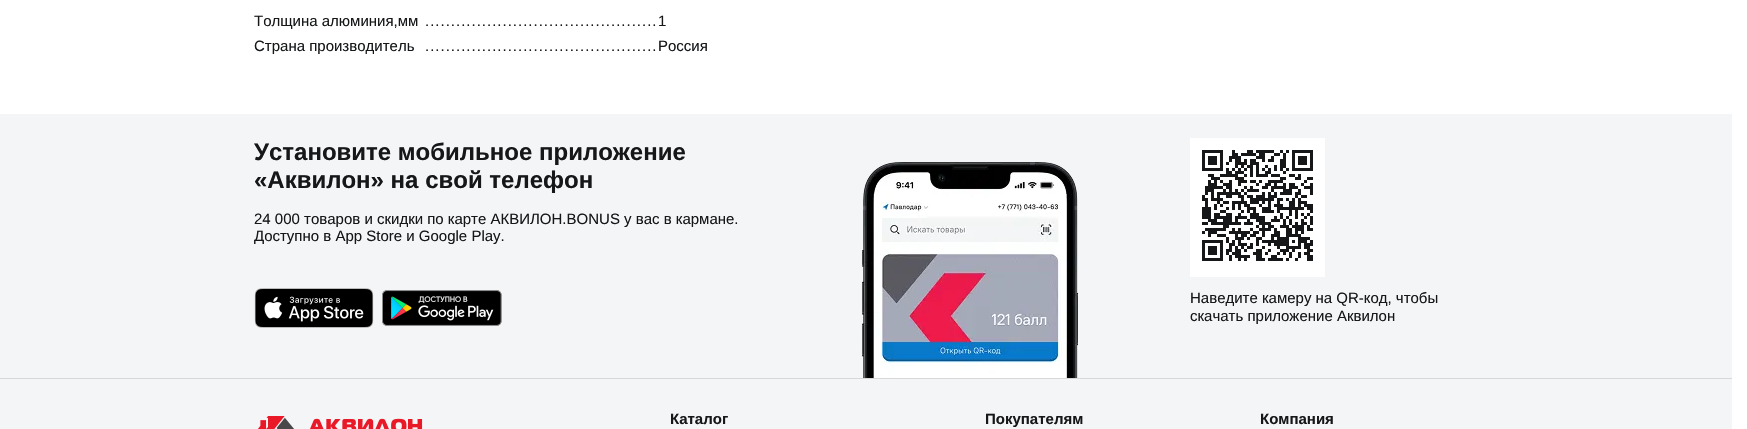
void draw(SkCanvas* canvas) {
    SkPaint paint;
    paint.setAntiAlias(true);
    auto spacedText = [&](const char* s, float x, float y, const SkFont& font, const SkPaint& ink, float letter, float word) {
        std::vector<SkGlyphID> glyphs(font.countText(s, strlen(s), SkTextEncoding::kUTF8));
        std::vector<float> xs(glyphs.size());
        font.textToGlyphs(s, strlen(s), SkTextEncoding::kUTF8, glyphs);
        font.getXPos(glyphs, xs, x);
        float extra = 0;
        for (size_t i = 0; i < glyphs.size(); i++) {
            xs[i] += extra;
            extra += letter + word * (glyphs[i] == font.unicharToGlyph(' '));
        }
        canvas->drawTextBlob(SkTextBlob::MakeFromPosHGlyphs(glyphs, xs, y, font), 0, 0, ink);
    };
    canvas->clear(0xFFFFFFFF);
    SkFont font1(fontMgr->matchFamilyStyle("Liberation Sans", SkFontStyle::Normal()), 15);
    font1.setSubpixel(true);
    paint.setColor(0xFF151719);
    canvas->drawString("Толщина алюминия,мм", 254, 26, font1, paint);
    spacedText(".............................................", 425, 26, font1, paint, 1, 0);
    paint.setColor(0xFFFFFFFF);
    canvas->drawRect(SkRect::MakeXYWH(425, 24, 1, 2), paint);
    paint.setColor(0xFF151719);
    canvas->drawString("1", 658, 26, font1, paint);
    canvas->save();
    canvas->clipRect(SkRect::MakeXYWH(254, 37, 404, 17));
    canvas->drawString("Страна производитель", 254, 51, font1, paint);
    canvas->restore();
    spacedText(".............................................", 425, 51, font1, paint, 1, 0);
    canvas->drawString("Россия", 658, 51, font1, paint);
    paint.setColor(0xFFF4F5F6);
    canvas->drawRect(SkRect::MakeXYWH(0, 114, 1732, 264), paint);
    SkFont font2(fontMgr->matchFamilyStyle("Liberation Sans", SkFontStyle::Bold()), 24);
    font2.setSubpixel(true);
    paint.setColor(0xFF151719);
    canvas->drawString("Установите мобильное приложение", 254, 160, font2, paint);
    canvas->drawString("«Аквилон» на свой телефон", 254, 188, font2, paint);
    canvas->drawString("24 000 товаров и скидки по карте АКВИЛОН.BONUS у вас в кармане.", 254, 224, font1, paint);
    canvas->drawString("Доступно в App Store и Google Play.", 254, 241, font1, paint);
    canvas->drawImageRect(SkImages::DeferredFromEncodedData(SkData::MakeFromFileName("img1.png")), SkRect::MakeXYWH(254, 288, 120, 40), SkSamplingOptions());
    canvas->drawImageRect(SkImages::DeferredFromEncodedData(SkData::MakeFromFileName("img2.png")), SkRect::MakeXYWH(382, 290, 120, 36), SkSamplingOptions());
    canvas->drawImageRect(SkImages::DeferredFromEncodedData(SkData::MakeFromFileName("img3.png")), SkRect::MakeXYWH(862, 162, 216, 216), SkSamplingOptions());
    paint.setColor(0xFFFFFFFF);
    canvas->drawRect(SkRect::MakeXYWH(1190, 138, 135, 139), paint);
    canvas->drawImageRect(SkImages::DeferredFromEncodedData(SkData::MakeFromFileName("img4.png")), SkRect::MakeXYWH(1202, 150, 111, 111), SkSamplingOptions());
    paint.setColor(0xFF151719);
    canvas->drawString("Наведите камеру на QR-код, чтобы", 1190, 303, font1, paint);
    canvas->drawString("скачать приложение Аквилон", 1190, 321, font1, paint);
    paint.setColor(0xFFF4F5F6);
    canvas->drawRect(SkRect::MakeXYWH(0, 379, 1732, 50), paint);
    paint.setColor(0xFFD7D8D8);
    canvas->drawRect(SkRect::MakeXYWH(0, 378, 1732, 1), paint);
    canvas->drawImageRect(SkImages::DeferredFromEncodedData(SkData::MakeFromFileName("img5.png")), SkRect::MakeXYWH(258, 416, 165, 13), SkSamplingOptions());
    SkFont font3(fontMgr->matchFamilyStyle("Liberation Sans", SkFontStyle::Bold()), 15);
    font3.setSubpixel(true);
    paint.setColor(0xFF151719);
    canvas->drawString("Каталог", 670, 424, font3, paint);
    canvas->drawString("Покупателям", 985, 424, font3, paint);
    canvas->drawString("Компания", 1260, 424, font3, paint);
}
